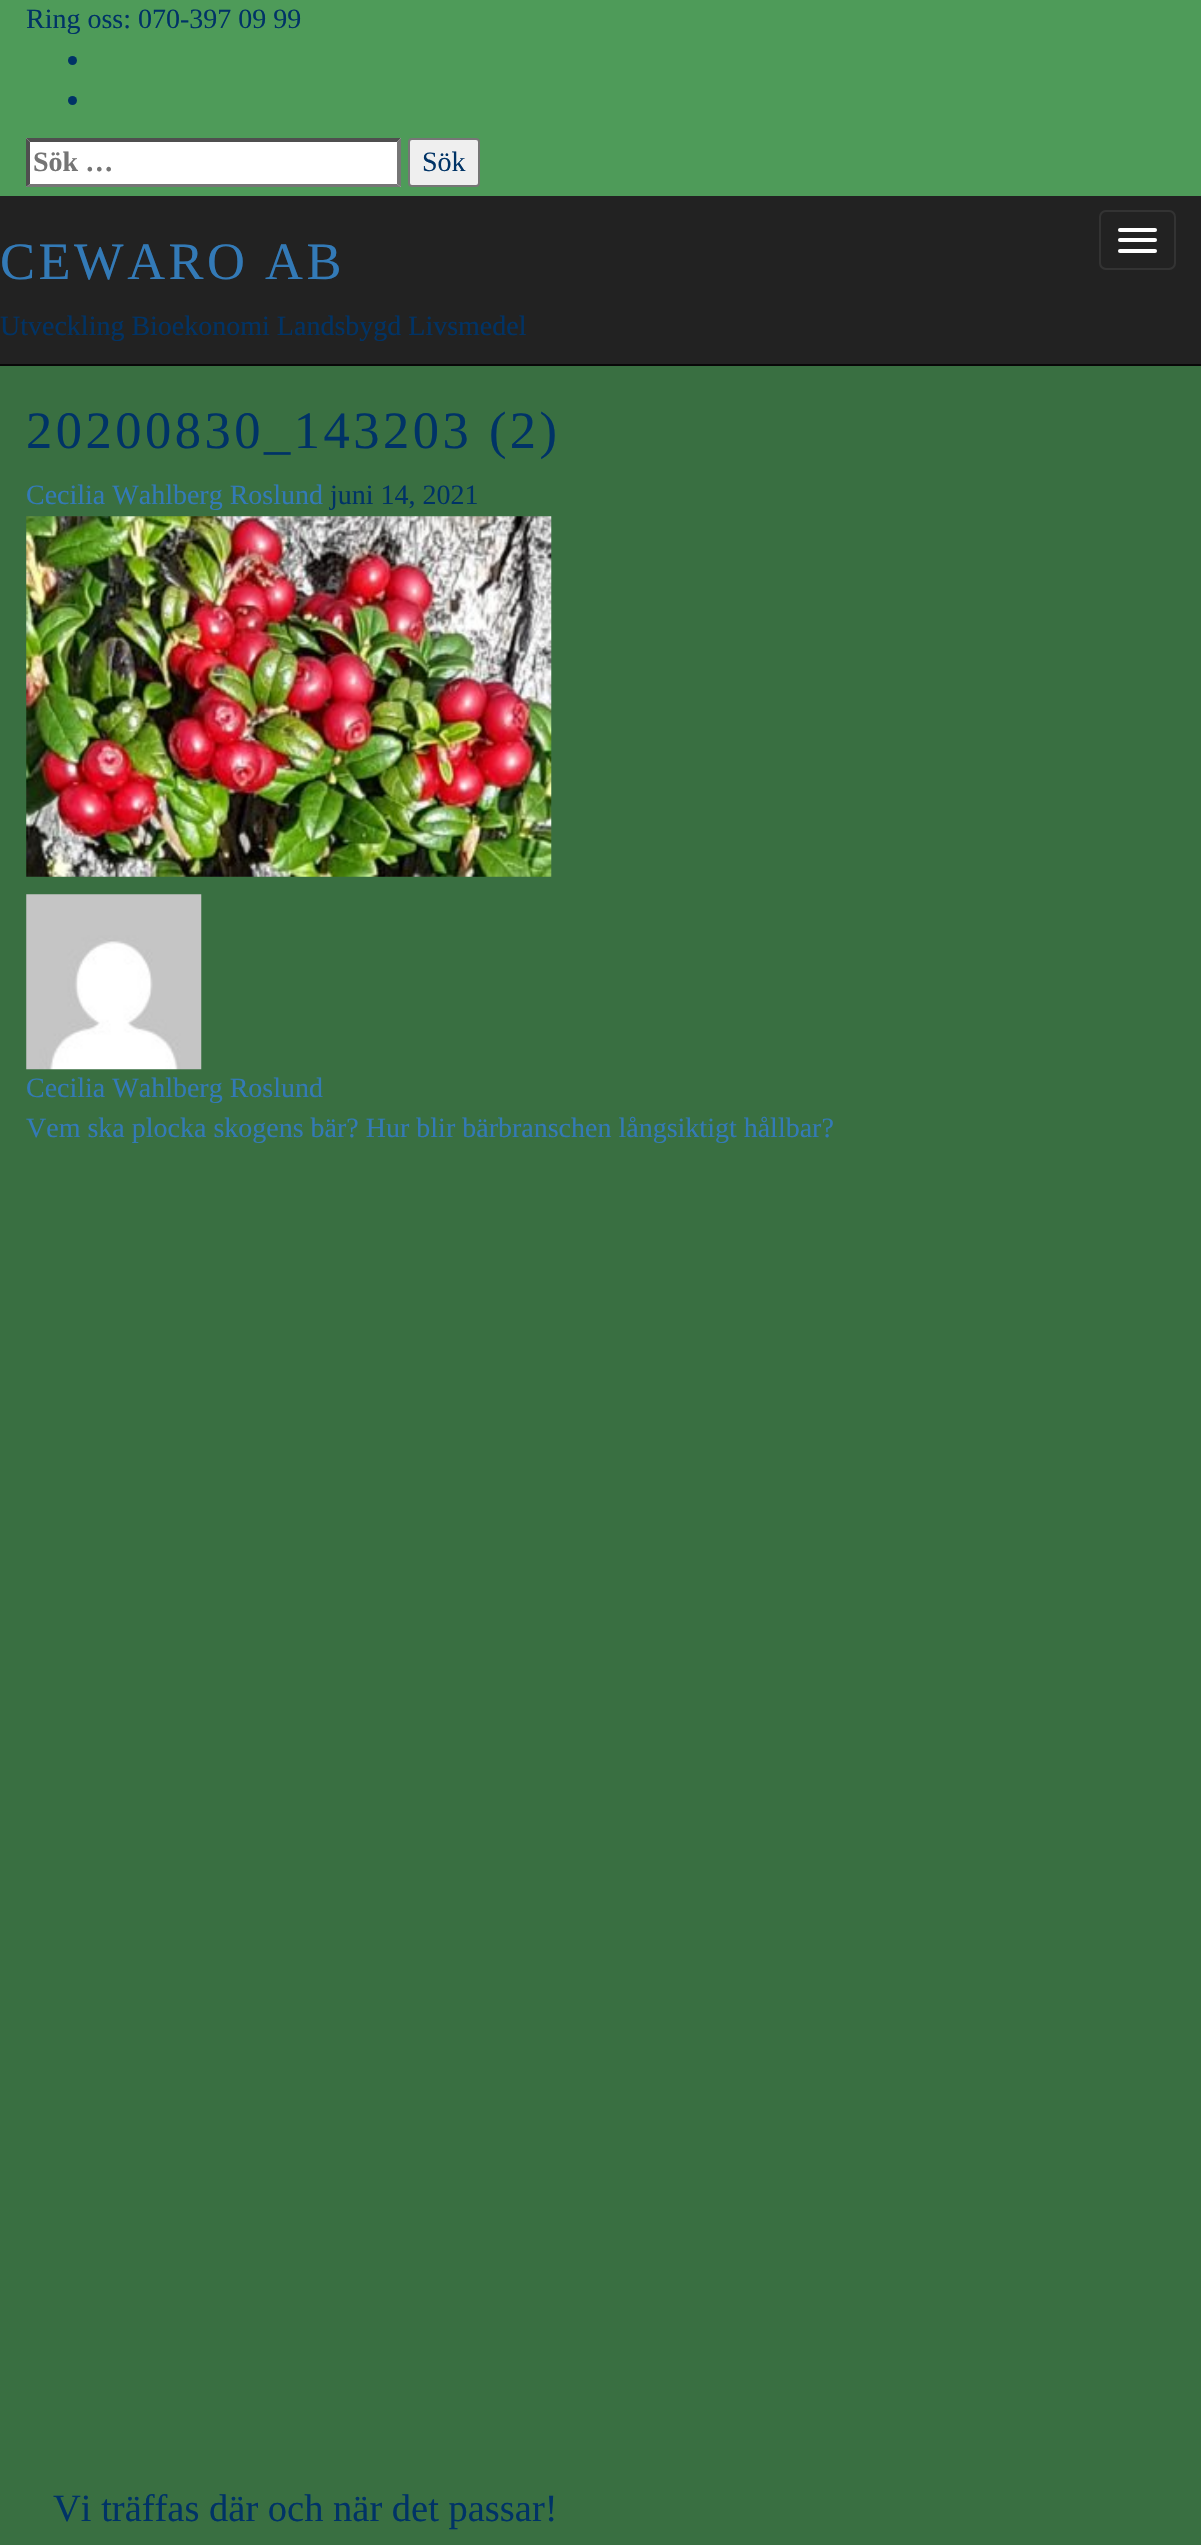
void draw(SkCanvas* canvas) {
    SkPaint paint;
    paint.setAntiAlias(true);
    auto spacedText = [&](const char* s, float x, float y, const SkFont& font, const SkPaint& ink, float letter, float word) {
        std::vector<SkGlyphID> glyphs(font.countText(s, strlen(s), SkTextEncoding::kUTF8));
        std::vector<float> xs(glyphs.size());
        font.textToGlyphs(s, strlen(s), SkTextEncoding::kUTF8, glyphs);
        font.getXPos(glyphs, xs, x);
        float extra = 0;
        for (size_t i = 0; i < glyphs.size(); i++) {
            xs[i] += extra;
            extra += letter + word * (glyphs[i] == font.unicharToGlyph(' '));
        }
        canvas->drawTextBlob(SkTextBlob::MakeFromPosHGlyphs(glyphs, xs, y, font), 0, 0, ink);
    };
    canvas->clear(0xFF396F41);
    paint.setColor(0xFF222222);
    canvas->drawRect(SkRect::MakeXYWH(0, 196, 1201, 168), paint);
    paint.setColor(0xFF080808);
    canvas->drawRect(SkRect::MakeXYWH(0, 364, 1201, 2), paint);
    paint.setColor(0xFF4E9B59);
    canvas->drawRect(SkRect::MakeXYWH(0, 0, 1201, 196), paint);
    SkFont font1(fontMgr->matchFamilyStyle("Liberation Serif", SkFontStyle::Normal()), 28);
    font1.setSubpixel(true);
    paint.setColor(0xFF003366);
    canvas->drawString("Ring oss: 070-397 09 99", 26, 28, font1, paint);
    canvas->drawCircle(72.5f, 60.5f, 4.5f, paint);
    canvas->drawCircle(72.5f, 100.5f, 4.5f, paint);
    paint.setColor(0xFFFFFFFF);
    canvas->drawRect(SkRect::MakeXYWH(26, 138, 375, 49), paint);
    paint.setColor(0xFF4F4F4F);
    canvas->drawPath(SkPathBuilder().moveTo(26, 138).lineTo(401, 138).lineTo(397, 142).lineTo(30, 142).close().detach(), paint);
    paint.setColor(0xFF767676);
    canvas->drawPath(SkPathBuilder().moveTo(401, 138).lineTo(401, 187).lineTo(397, 184).lineTo(397, 142).close().detach(), paint);
    canvas->drawPath(SkPathBuilder().moveTo(401, 187).lineTo(26, 187).lineTo(30, 184).lineTo(397, 184).close().detach(), paint);
    paint.setColor(0xFF4F4F4F);
    canvas->drawPath(SkPathBuilder().moveTo(26, 187).lineTo(26, 138).lineTo(30, 142).lineTo(30, 184).close().detach(), paint);
    SkFont font2(fontMgr->matchFamilyStyle("Liberation Serif", SkFontStyle::Bold()), 28);
    font2.setSubpixel(true);
    paint.setColor(0xFF757575);
    canvas->drawString("Sök …", 33, 171, font2, paint);
    paint.setColor(0xFFEFEFEF);
    canvas->drawRoundRect(SkRect::MakeXYWH(409, 139, 70, 47), 3, 3, paint);
    paint.setStyle(SkPaint::kStroke_Style);
    paint.setStrokeWidth(2);
    paint.setColor(0xFF767676);
    canvas->drawRoundRect(SkRect::MakeXYWH(409, 139, 70, 47), 3, 3, paint);
    paint.setStyle(SkPaint::kFill_Style);
    paint.setColor(0xFF003366);
    canvas->drawString("Sök", 422, 171, font1, paint);
    SkFont font3(fontMgr->matchFamilyStyle("Liberation Serif", SkFontStyle::Normal()), 52.5f);
    font3.setSubpixel(true);
    paint.setColor(0xFF337AB7);
    spacedText("CEWARO AB", 0, 279, font3, paint, 3.5f, 0);
    paint.setColor(0xFF003366);
    canvas->drawString("Utveckling Bioekonomi Landsbygd Livsmedel", 0, 335, font1, paint);
    paint.setStyle(SkPaint::kStroke_Style);
    paint.setColor(0xFF333333);
    canvas->drawRoundRect(SkRect::MakeXYWH(1100, 211, 75, 58), 6, 6, paint);
    paint.setStyle(SkPaint::kFill_Style);
    paint.setColor(0xFFFFFFFF);
    canvas->drawRoundRect(SkRect::MakeXYWH(1118, 228, 39, 4), 2, 2, paint);
    canvas->drawRoundRect(SkRect::MakeXYWH(1118, 238, 39, 4), 2, 2, paint);
    canvas->drawRoundRect(SkRect::MakeXYWH(1118, 249, 39, 4), 2, 2, paint);
    paint.setColor(0xFF003366);
    spacedText("20200830_143203 (2)", 26, 448, font3, paint, 3.5f, 0);
    paint.setColor(0xFF337AB7);
    canvas->drawString("Cecilia Wahlberg Roslund", 26, 504, font1, paint);
    paint.setColor(0xFF003366);
    canvas->drawString("juni 14, 2021", 330, 504, font1, paint);
    canvas->drawImageRect(SkImages::DeferredFromEncodedData(SkData::MakeFromFileName("img1.png")), SkRect::MakeXYWH(26, 516, 526, 361), SkSamplingOptions());
    canvas->drawImageRect(SkImages::DeferredFromEncodedData(SkData::MakeFromFileName("img2.png")), SkRect::MakeXYWH(26, 894, 176, 176), SkSamplingOptions());
    paint.setColor(0xFF337AB7);
    canvas->drawString("Cecilia Wahlberg Roslund", 26, 1097, font1, paint);
    canvas->drawString("Vem ska plocka skogens bär? Hur blir bärbranschen långsiktigt hållbar?", 26, 1137, font1, paint);
    SkFont font4(fontMgr->matchFamilyStyle("Liberation Serif", SkFontStyle::Normal()), 38.5f);
    font4.setSubpixel(true);
    paint.setColor(0xFF003366);
    canvas->drawString("Vi träffas där och när det passar!", 53, 2521, font4, paint);
}
